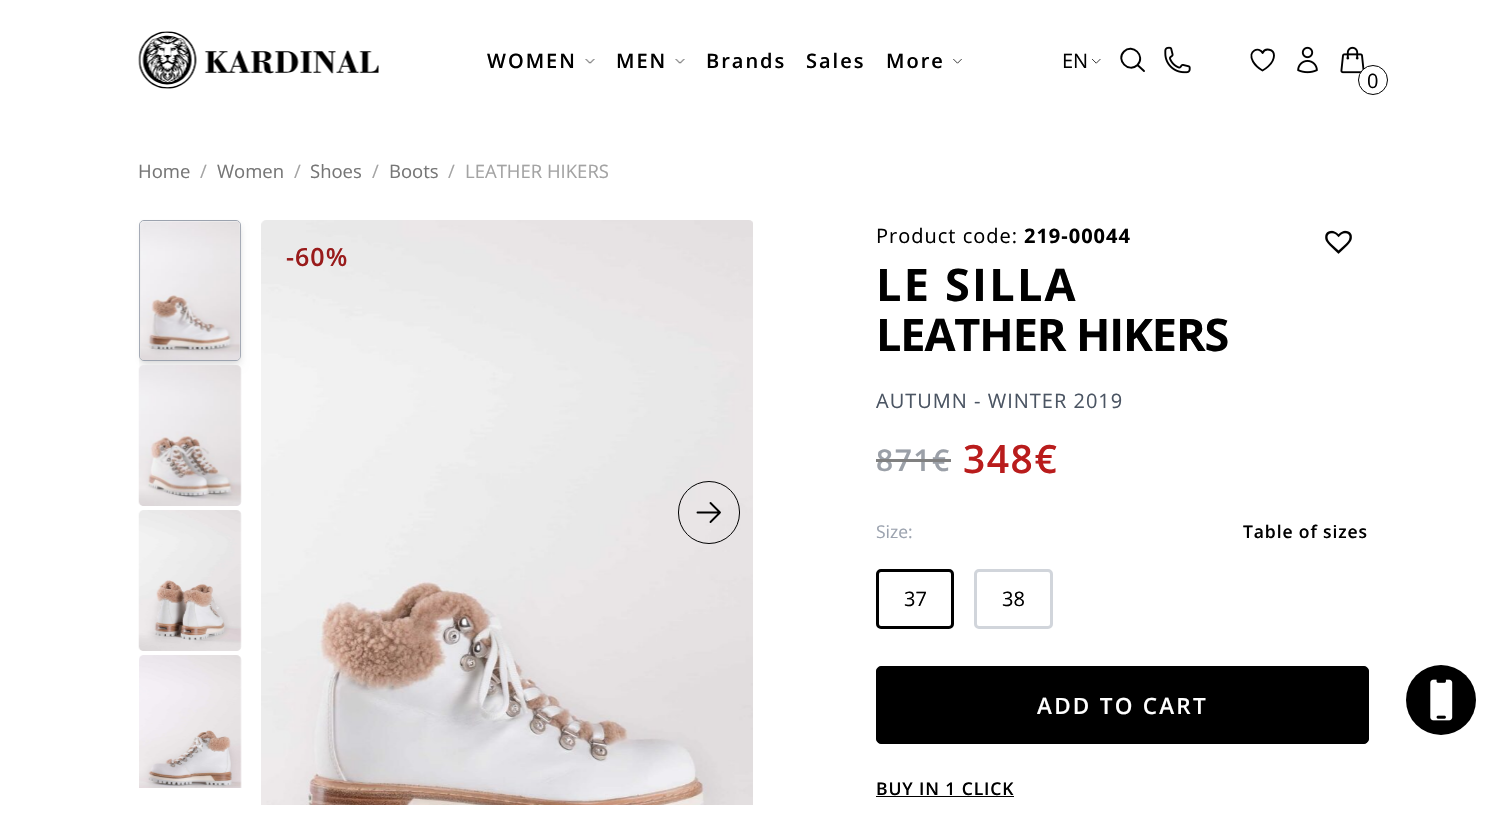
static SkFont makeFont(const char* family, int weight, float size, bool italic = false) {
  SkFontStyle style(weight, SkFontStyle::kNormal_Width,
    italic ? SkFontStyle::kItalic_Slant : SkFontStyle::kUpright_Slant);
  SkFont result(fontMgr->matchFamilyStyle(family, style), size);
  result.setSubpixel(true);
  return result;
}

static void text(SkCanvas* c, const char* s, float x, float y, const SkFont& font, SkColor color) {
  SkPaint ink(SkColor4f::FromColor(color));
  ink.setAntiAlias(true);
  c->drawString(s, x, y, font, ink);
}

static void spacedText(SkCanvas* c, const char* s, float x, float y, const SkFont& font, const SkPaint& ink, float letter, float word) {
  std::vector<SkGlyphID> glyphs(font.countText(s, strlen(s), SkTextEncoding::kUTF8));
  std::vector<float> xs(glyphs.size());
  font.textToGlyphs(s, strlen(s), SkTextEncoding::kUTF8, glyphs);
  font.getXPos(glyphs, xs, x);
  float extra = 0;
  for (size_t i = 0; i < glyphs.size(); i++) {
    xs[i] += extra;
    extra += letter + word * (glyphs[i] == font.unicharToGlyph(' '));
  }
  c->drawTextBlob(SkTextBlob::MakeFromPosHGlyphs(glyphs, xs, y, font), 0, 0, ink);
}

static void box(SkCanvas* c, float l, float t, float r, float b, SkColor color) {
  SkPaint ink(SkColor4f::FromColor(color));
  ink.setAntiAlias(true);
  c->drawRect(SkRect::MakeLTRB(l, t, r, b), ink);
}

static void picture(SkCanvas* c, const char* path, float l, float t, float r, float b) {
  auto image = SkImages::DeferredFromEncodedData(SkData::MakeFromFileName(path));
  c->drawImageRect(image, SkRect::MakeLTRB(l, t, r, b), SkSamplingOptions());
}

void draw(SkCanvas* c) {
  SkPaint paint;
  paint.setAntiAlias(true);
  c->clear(0xffffffff);
  picture(c, "img_01.png", 138, 31, 379, 89);
  SkFont face1 = makeFont("Open Sans", 600, 20);
  paint.setColor(0xff000000);
  spacedText(c, "WOMEN", 487, 68, face1, paint, 2, 0);
  picture(c, "img_02.png", 585, 59, 595, 64);
  spacedText(c, "MEN", 616, 68, face1, paint, 2, 0);
  picture(c, "img_02.png", 675, 59, 685, 64);
  spacedText(c, "Brands", 706, 68, face1, paint, 2, 0);
  spacedText(c, "Sales", 806, 68, face1, paint, 2, 0);
  spacedText(c, "More", 886, 68, face1, paint, 2, 0);
  picture(c, "img_03.png", 953, 59, 962, 64);
  SkFont face2 = makeFont("Open Sans", 400, 20);
  text(c, "EN", 1062, 68, face2, 0xff000000);
  picture(c, "img_04.png", 1092, 59, 1101, 64);
  paint.setStyle(SkPaint::kStroke_Style);
  paint.setStrokeWidth(1.9f);
  paint.setStrokeCap(SkPaint::kRound_Cap);
  paint.setStrokeJoin(SkPaint::kRound_Join);
  c->drawPath(SkPathBuilder().moveTo(1144, 71).lineTo(1137.5f, 65).moveTo(1137.5f, 65).cubicTo(1146, 56, 1132.5f, 43, 1124, 51.5f).cubicTo(1115.5f, 60, 1128.5f, 73.5f, 1137.5f, 65).close().detach(), paint);
  picture(c, "img_05.png", 1164, 46, 1191, 74);
  c->drawPath(SkPathBuilder().moveTo(1274, 55.5f).cubicTo(1274, 49, 1265, 47.5f, 1262.5f, 53).cubicTo(1259.5f, 46, 1247, 50.5f, 1253, 61.5f).cubicTo(1255, 65, 1259, 68.5f, 1262.5f, 70.5f).cubicTo(1262.5f, 70.5f, 1274, 64.5f, 1274, 55.5f).close().detach(), paint);
  picture(c, "img_06.png", 1297, 46, 1318, 74);
  picture(c, "img_07.png", 1340, 46, 1365, 74);
  paint.setStyle(SkPaint::kFill_Style);
  paint.setColor(0xffffffff);
  c->drawCircle(1373, 80, 14.5f, paint);
  paint.setStyle(SkPaint::kStroke_Style);
  paint.setStrokeWidth(1);
  paint.setStrokeCap(SkPaint::kButt_Cap);
  paint.setStrokeJoin(SkPaint::kMiter_Join);
  paint.setColor(0xff000000);
  c->drawCircle(1373, 80, 14.5f, paint);
  text(c, "0", 1367, 88, face2, 0xff000000);
  SkFont face3 = makeFont("Open Sans", 400, 18.5f);
  text(c, "Home", 138, 178, face3, 0xff767676);
  text(c, "/", 200, 178, face3, 0xffa3a3a3);
  text(c, "Women", 217, 178, face3, 0xff767676);
  text(c, "/", 294, 178, face3, 0xffa3a3a3);
  text(c, "Shoes", 310, 178, face3, 0xff767676);
  text(c, "/", 372, 178, face3, 0xffa3a3a3);
  text(c, "Boots", 389, 178, face3, 0xff767676);
  text(c, "/", 448, 178, face3, 0xffa3a3a3);
  text(c, "LEATHER HIKERS", 465, 178, face3, 0xffa3a3a3);
  paint.setStyle(SkPaint::kFill_Style);
  paint.setColor(0x1a000000);
  paint.setMaskFilter(SkMaskFilter::MakeBlur(kNormal_SkBlurStyle, 2.5f));
  c->drawRoundRect(SkRect::MakeLTRB(141, 225, 239, 361), 2.5f, 2.5f, paint);
  paint.setMaskFilter(nullptr);
  c->save();
  c->clipRect(SkRect::MakeLTRB(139, 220, 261, 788));
  paint.setMaskFilter(SkMaskFilter::MakeBlur(kNormal_SkBlurStyle, 4));
  c->drawRoundRect(SkRect::MakeLTRB(140, 226, 240, 365), 4, 4, paint);
  paint.setMaskFilter(nullptr);
  c->restore();
  paint.setStyle(SkPaint::kStroke_Style);
  paint.setColor(0xff9ca3af);
  c->drawRoundRect(SkRect::MakeLTRB(139.5f, 220.5f, 240.5f, 360.5f), 4.5f, 4.5f, paint);
  picture(c, "img_08.png", 139, 221, 241, 360);
  picture(c, "img_09.png", 138, 365, 242, 506);
  picture(c, "img_10.png", 138, 510, 242, 651);
  picture(c, "img_11.png", 139, 655, 242, 788);
  picture(c, "img_12.png", 261, 220, 753, 805);
  SkFont face4 = makeFont("Open Sans", 600, 25);
  paint.setStyle(SkPaint::kFill_Style);
  paint.setColor(0xff991b1b);
  spacedText(c, "-60%", 286, 266, face4, paint, 1, 0);
  paint.setStyle(SkPaint::kStroke_Style);
  paint.setColor(0xff000000);
  c->drawRoundRect(SkRect::MakeLTRB(678.5f, 481.5f, 739.5f, 543.5f), 30.5f, 30.5f, paint);
  paint.setStrokeWidth(1.9f);
  paint.setStrokeCap(SkPaint::kRound_Cap);
  paint.setStrokeJoin(SkPaint::kRound_Join);
  c->drawPath(SkPathBuilder().moveTo(710.5f, 503).lineTo(720, 512.5f).moveTo(720, 512.5f).lineTo(710.5f, 522).moveTo(720, 512.5f).lineTo(697.5f, 512.5f).detach(), paint);
  paint.setStyle(SkPaint::kFill_Style);
  spacedText(c, "Product code:", 876, 243, face2, paint, 1, 0);
  SkFont face5 = makeFont("Open Sans", 700, 20);
  spacedText(c, "219-00044", 1024, 243, face5, paint, 1, 0);
  picture(c, "img_13.png", 1325, 230, 1352, 254);
  SkFont face6 = makeFont("Open Sans", 700, 45);
  spacedText(c, "LE SILLA", 876, 301, face6, paint, 2.25f, 0);
  spacedText(c, "LEATHER HIKERS", 876, 351, face6, paint, -1.1f, 0);
  paint.setColor(0xff4b5563);
  spacedText(c, "AUTUMN - WINTER 2019", 876, 408, face2, paint, 1, 0);
  SkFont face7 = makeFont("Open Sans", 600, 30);
  paint.setColor(0xff9ba0a8);
  spacedText(c, "871", 876, 471, face7, paint, 1.5f, 0);
  box(c, 876, 459, 933, 462, 0xff808080);
  spacedText(c, "€", 932, 471, face7, paint, 1.5f, 0);
  box(c, 933, 459, 951, 462, 0xff808080);
  SkFont face8 = makeFont("Open Sans", 600, 39);
  paint.setColor(0xffb91c1c);
  spacedText(c, "348€", 963, 473, face8, paint, 1.5f, 0);
  SkFont face9 = makeFont("Open Sans", 400, 17.5f);
  text(c, "Size:", 876, 538, face9, 0xff9ca3af);
  SkFont face10 = makeFont("Open Sans", 600, 17.5f);
  paint.setColor(0xff000000);
  spacedText(c, "Table of sizes", 1243, 538, face10, paint, 0.9f, 0);
  paint.setStyle(SkPaint::kStroke_Style);
  paint.setStrokeWidth(3);
  paint.setStrokeCap(SkPaint::kButt_Cap);
  paint.setStrokeJoin(SkPaint::kMiter_Join);
  c->drawRoundRect(SkRect::MakeLTRB(877.5f, 570.5f, 952.5f, 627.5f), 3.5f, 3.5f, paint);
  text(c, "37", 904, 606, face2, 0xff000000);
  paint.setColor(0xffd1d5db);
  c->drawRoundRect(SkRect::MakeLTRB(975.5f, 570.5f, 1051.5f, 627.5f), 3.5f, 3.5f, paint);
  text(c, "38", 1002, 606, face2, 0xff000000);
  paint.setStyle(SkPaint::kFill_Style);
  paint.setColor(0xff000000);
  c->drawRoundRect(SkRect::MakeLTRB(876.5f, 666.5f, 1368.5f, 743.5f), 4.5f, 4.5f, paint);
  paint.setStyle(SkPaint::kStroke_Style);
  paint.setStrokeWidth(1);
  c->drawRoundRect(SkRect::MakeLTRB(876.5f, 666.5f, 1368.5f, 743.5f), 4.5f, 4.5f, paint);
  SkFont face11 = makeFont("Open Sans", 600, 22.5f);
  paint.setStyle(SkPaint::kFill_Style);
  paint.setColor(0xffffffff);
  spacedText(c, "ADD TO CART", 1037, 714, face11, paint, 2.25f, 0);
  paint.setColor(0xff000000);
  spacedText(c, "BUY IN 1 CLICK", 876, 795, face10, paint, 0.9f, 0);
  box(c, 876, 796, 1014, 797, 0xff000000);
  c->drawCircle(1441, 700, 35, paint);
  picture(c, "img_14.png", 1430, 679, 1453, 721);
}
